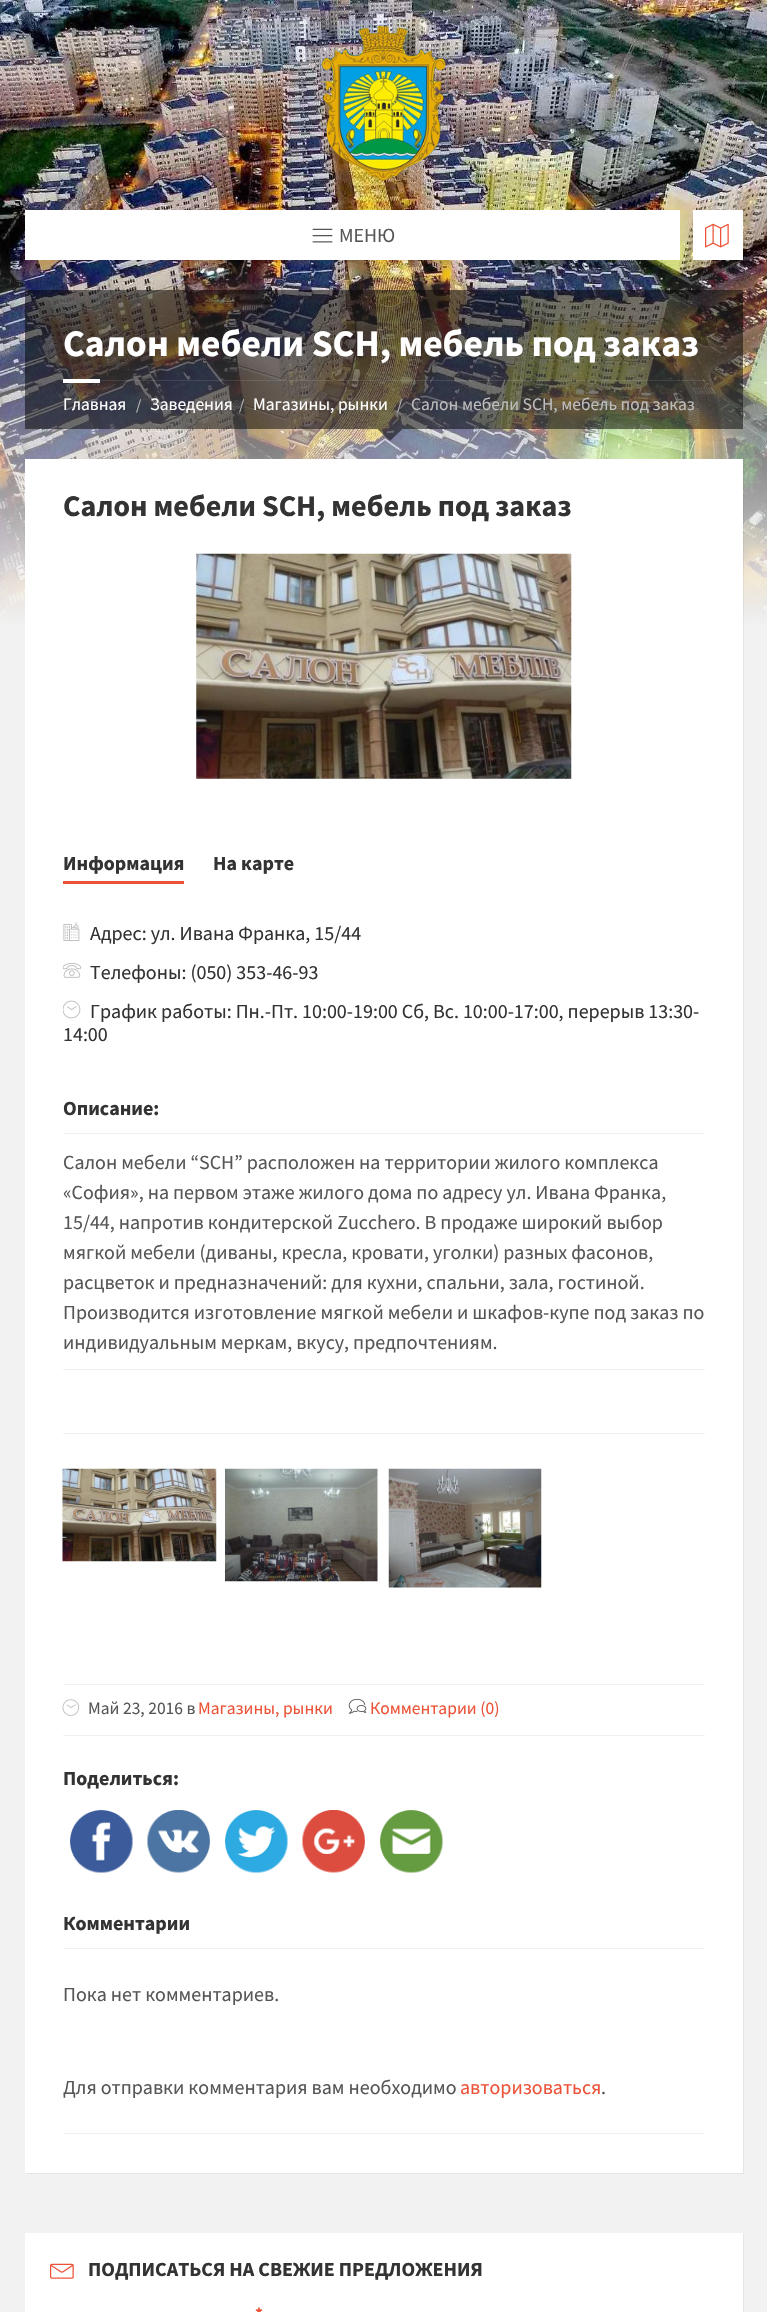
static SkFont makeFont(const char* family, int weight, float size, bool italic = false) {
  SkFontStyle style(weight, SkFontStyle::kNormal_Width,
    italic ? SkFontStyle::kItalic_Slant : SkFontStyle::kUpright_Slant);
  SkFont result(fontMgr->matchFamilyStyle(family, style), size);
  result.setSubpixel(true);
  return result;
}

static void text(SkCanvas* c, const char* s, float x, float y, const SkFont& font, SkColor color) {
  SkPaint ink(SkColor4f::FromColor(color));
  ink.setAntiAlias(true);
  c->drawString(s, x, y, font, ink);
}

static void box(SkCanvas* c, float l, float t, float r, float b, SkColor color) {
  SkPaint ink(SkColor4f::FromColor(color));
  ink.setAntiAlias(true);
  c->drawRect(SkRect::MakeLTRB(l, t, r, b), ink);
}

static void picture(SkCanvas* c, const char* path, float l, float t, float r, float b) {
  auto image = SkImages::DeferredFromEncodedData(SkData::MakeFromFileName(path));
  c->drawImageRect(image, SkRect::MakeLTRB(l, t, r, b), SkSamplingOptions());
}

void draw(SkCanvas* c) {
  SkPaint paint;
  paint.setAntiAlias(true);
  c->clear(0xfff2f2f2);
  picture(c, "img_01.png", 0, 0, 767, 625);
  picture(c, "img_02.png", 321, 25, 446, 181);
  box(c, 25, 210, 680, 260, 0xffffffff);
  picture(c, "img_03.png", 312, 228, 333, 243);
  SkFont face1 = makeFont("Source Sans Pro", 400, 20);
  text(c, "МЕНЮ", 339, 242, face1, 0xff565656);
  box(c, 693, 210, 743, 260, 0xffffffff);
  picture(c, "img_04.png", 705, 223, 729, 248);
  box(c, 25, 290, 743, 429, 0x80000000);
  box(c, 100, 380, 705, 381, 0x1affffff);
  SkFont face2 = makeFont("Source Sans Pro", 700, 37.5f);
  text(c, "Салон мебели SCH, мебель под заказ", 63, 356, face2, 0xffffffff);
  box(c, 63, 379, 100, 383, 0xffffffff);
  SkFont face3 = makeFont("Source Sans Pro", 400, 17.5f);
  text(c, "Главная", 63, 410, face3, 0xffffffff);
  SkFont face4 = makeFont("Source Sans Pro", 400, 15);
  text(c, "/", 136, 410, face4, 0xffbebebe);
  text(c, "Заведения", 150, 410, face3, 0xffffffff);
  text(c, "/", 239, 410, face4, 0xffbebebe);
  text(c, "Магазины, рынки", 253, 410, face3, 0xffffffff);
  text(c, "/", 397, 410, face4, 0xffbebebe);
  text(c, "Салон мебели SCH, мебель под заказ", 411, 410, face3, 0xffbebebe);
  paint.setColor(0x80000000);
  c->drawPath(SkPathBuilder().moveTo(377.5f, 429).lineTo(402.5f, 429).lineTo(390, 441).close().detach(), paint);
  paint.setColor(0x0d000000);
  c->drawPath(SkPathBuilder().moveTo(26, 2172).lineTo(26, 2174).lineTo(744, 2174).lineTo(744, 460).lineTo(742, 460).lineTo(742, 2172).close().detach(), paint);
  box(c, 25, 459, 743, 2173, 0xffffffff);
  SkFont face5 = makeFont("Source Sans Pro", 700, 30);
  text(c, "Салон мебели SCH, мебель под заказ", 63, 516, face5, 0xff333333);
  picture(c, "img_05.png", 196, 553, 572, 779);
  box(c, 63, 881, 184, 884, 0xffec5237);
  SkFont face6 = makeFont("Source Sans Pro", 700, 20);
  text(c, "Информация", 63, 870, face6, 0xff333333);
  text(c, "На карте", 213, 870, face6, 0xff333333);
  picture(c, "img_06.png", 63, 922, 80, 941);
  text(c, "Адрес: ул. Ивана Франка, 15/44", 90, 940, face1, 0xff333333);
  picture(c, "img_07.png", 63, 963, 82, 978);
  text(c, "Телефоны: (050) 353-46-93", 90, 979, face1, 0xff333333);
  picture(c, "img_08.png", 63, 1000, 81, 1019);
  text(c, "График работы: Пн.-Пт. 10:00-19:00 Сб, Вс. 10:00-17:00, перерыв 13:30-", 90, 1018, face1, 0xff333333);
  text(c, "14:00", 63, 1041, face1, 0xff333333);
  text(c, "Описание:", 63, 1115, face6, 0xff333333);
  box(c, 63, 1133, 705, 1134, 0xfff0f0f0);
  box(c, 63, 1369, 705, 1370, 0xfff0f0f0);
  text(c, "Салон мебели “SCH” расположен на территории жилого комплекса", 63, 1169, face1, 0xff565656);
  text(c, "«София», на первом этаже жилого дома по адресу ул. Ивана Франка,", 63, 1199, face1, 0xff565656);
  text(c, "15/44, напротив кондитерской Zucchero. В продаже широкий выбор", 63, 1229, face1, 0xff565656);
  text(c, "мягкой мебели (диваны, кресла, кровати, уголки) разных фасонов,", 63, 1259, face1, 0xff565656);
  text(c, "расцветок и предназначений: для кухни, спальни, зала, гостиной.", 63, 1289, face1, 0xff565656);
  text(c, "Производится изготовление мягкой мебели и шкафов-купе под заказ по", 63, 1319, face1, 0xff565656);
  text(c, "индивидуальным меркам, вкусу, предпочтениям.", 63, 1349, face1, 0xff565656);
  box(c, 63, 1433, 705, 1434, 0xfff0f0f0);
  picture(c, "img_09.png", 62, 1468, 217, 1562);
  picture(c, "img_10.png", 225, 1468, 378, 1582);
  picture(c, "img_11.png", 388, 1468, 542, 1588);
  box(c, 63, 1684, 705, 1685, 0xfff0f0f0);
  box(c, 63, 1735, 705, 1736, 0xfff0f0f0);
  picture(c, "img_12.png", 62, 1699, 80, 1716);
  text(c, "Май 23, 2016 в", 88, 1714, face3, 0xff565656);
  text(c, "Магазины, рынки", 198, 1714, face3, 0xffec5237);
  picture(c, "img_13.png", 348, 1698, 367, 1714);
  text(c, "Комментарии (0)", 370, 1714, face3, 0xffec5237);
  text(c, "Поделиться:", 63, 1785, face6, 0xff333333);
  picture(c, "img_14.png", 70, 1810, 133, 1873);
  picture(c, "img_15.png", 147, 1810, 210, 1873);
  picture(c, "img_16.png", 225, 1810, 288, 1873);
  picture(c, "img_17.png", 302, 1810, 365, 1873);
  picture(c, "img_18.png", 380, 1810, 443, 1873);
  text(c, "Комментарии", 63, 1930, face6, 0xff333333);
  box(c, 63, 1948, 705, 1949, 0xfff0f0f0);
  text(c, "Пока нет комментариев.", 63, 2001, face1, 0xff565656);
  text(c, "Для отправки комментария вам необходимо", 63, 2094, face1, 0xff565656);
  text(c, "авторизоваться", 460, 2094, face1, 0xffec5237);
  text(c, ".", 601, 2094, face1, 0xff565656);
  box(c, 63, 2133, 705, 2134, 0xfff0f0f0);
  paint.setColor(0xffe6e6e6);
  c->drawPath(SkPathBuilder().moveTo(26, 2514).lineTo(26, 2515).lineTo(744, 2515).lineTo(744, 2234).lineTo(742, 2234).lineTo(742, 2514).close().detach(), paint);
  box(c, 25, 2233, 743, 2312, 0xffffffff);
  picture(c, "img_19.png", 50, 2263, 74, 2279);
  text(c, "ПОДПИСАТЬСЯ НА СВЕЖИЕ ПРЕДЛОЖЕНИЯ", 88, 2276, face6, 0xff333333);
  SkFont face7 = makeFont("Source Sans Pro", 700, 17.5f);
  text(c, "*", 255, 2320, face7, 0xffec5237);
}
